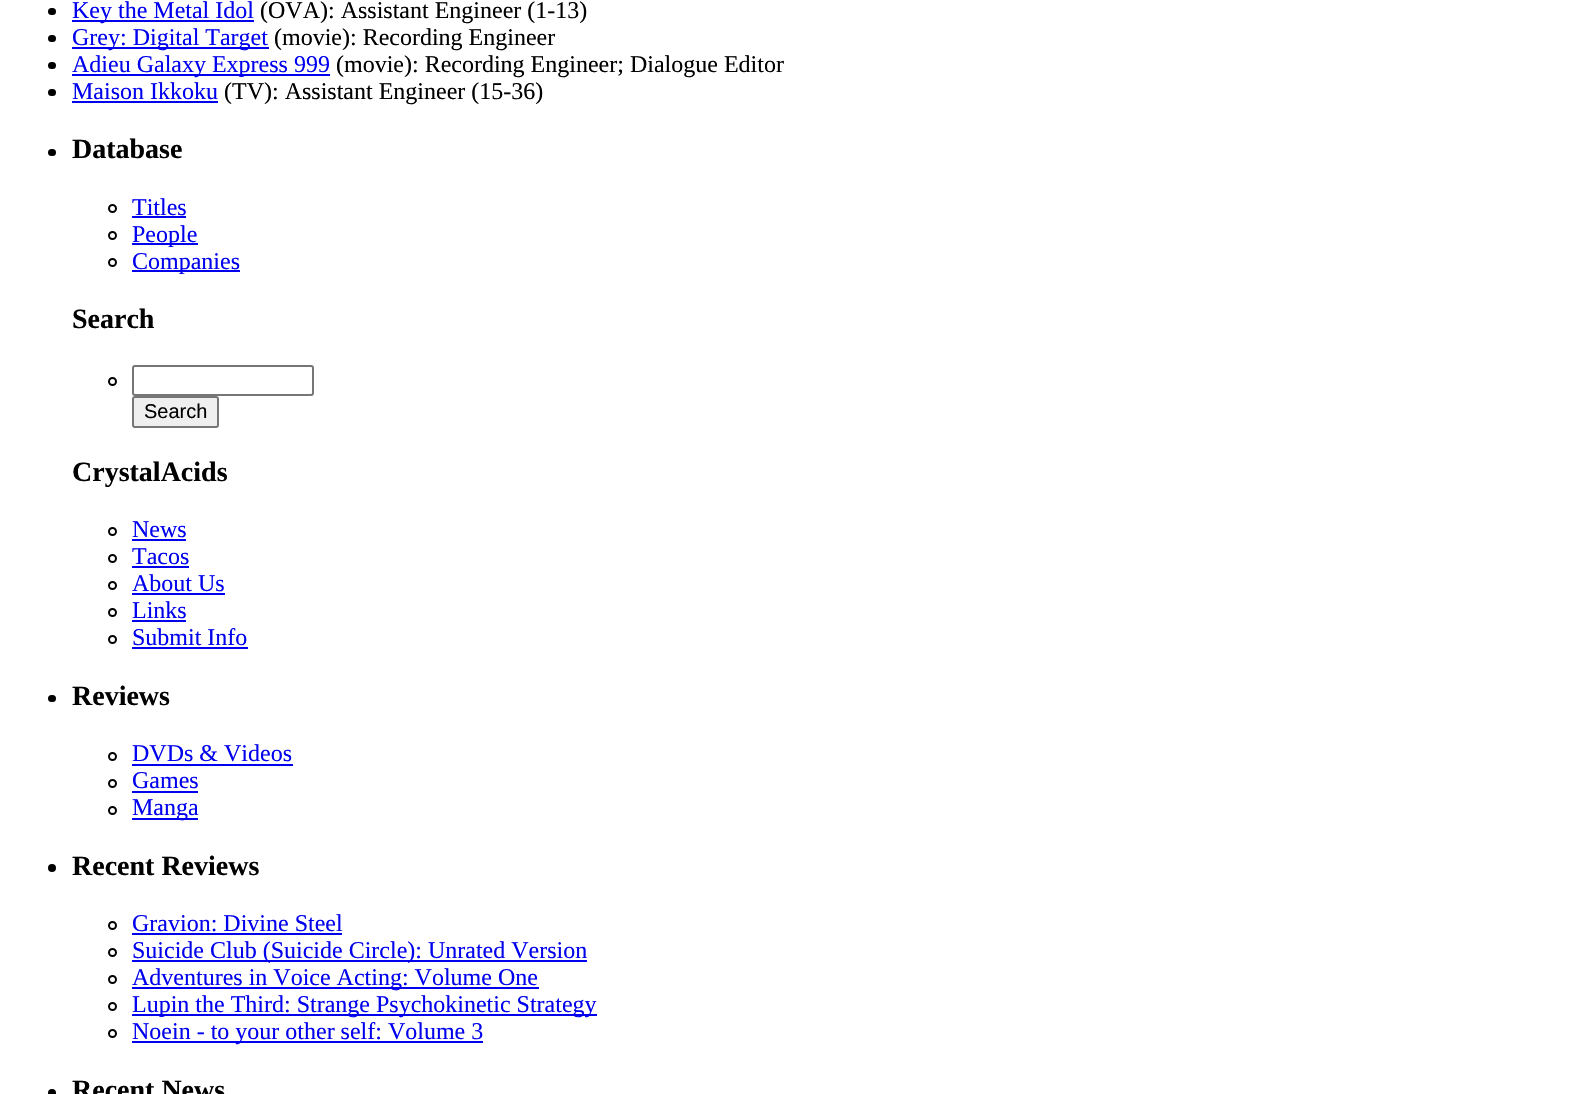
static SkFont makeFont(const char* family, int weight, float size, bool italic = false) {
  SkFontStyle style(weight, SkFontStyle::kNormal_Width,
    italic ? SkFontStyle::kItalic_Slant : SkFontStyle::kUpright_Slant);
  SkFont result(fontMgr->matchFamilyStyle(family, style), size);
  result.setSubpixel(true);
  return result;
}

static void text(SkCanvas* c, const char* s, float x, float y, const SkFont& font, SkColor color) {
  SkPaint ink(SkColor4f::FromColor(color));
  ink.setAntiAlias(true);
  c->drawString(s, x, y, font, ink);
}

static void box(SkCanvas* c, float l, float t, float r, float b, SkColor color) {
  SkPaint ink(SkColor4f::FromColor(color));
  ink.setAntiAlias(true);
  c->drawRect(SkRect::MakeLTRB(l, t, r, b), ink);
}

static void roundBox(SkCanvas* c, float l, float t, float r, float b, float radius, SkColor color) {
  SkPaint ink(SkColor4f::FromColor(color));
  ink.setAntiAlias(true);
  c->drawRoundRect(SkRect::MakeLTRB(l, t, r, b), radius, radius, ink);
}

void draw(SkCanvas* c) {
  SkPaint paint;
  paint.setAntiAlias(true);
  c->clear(0xffffffff);
  roundBox(c, 48, 8, 56, 15, 3.5f, 0xff000000);
  box(c, 72, 20, 254, 22, 0xff0000ee);
  SkFont face1 = makeFont("Liberation Serif", 400, 24);
  text(c, "Key the Metal Idol", 72, 18, face1, 0xff0000ee);
  text(c, "(OVA): Assistant Engineer (1-13)", 260, 18, face1, 0xff000000);
  roundBox(c, 48, 35, 56, 42, 3.5f, 0xff000000);
  box(c, 72, 47, 269, 49, 0xff0000ee);
  text(c, "Grey: Digital Target", 72, 45, face1, 0xff0000ee);
  text(c, "(movie): Recording Engineer", 274, 45, face1, 0xff000000);
  roundBox(c, 48, 62, 56, 69, 3.5f, 0xff000000);
  box(c, 72, 74, 330, 76, 0xff0000ee);
  text(c, "Adieu Galaxy Express 999", 72, 72, face1, 0xff0000ee);
  text(c, "(movie): Recording Engineer; Dialogue Editor", 336, 72, face1, 0xff000000);
  roundBox(c, 48, 89, 56, 96, 3.5f, 0xff000000);
  text(c, "Maison Ikkoku", 72, 99, face1, 0xff0000ee);
  box(c, 72, 101, 218, 103, 0xff0000ee);
  text(c, "(TV): Assistant Engineer (15-36)", 224, 99, face1, 0xff000000);
  roundBox(c, 48, 149, 56, 156, 3.5f, 0xff000000);
  SkFont face2 = makeFont("Liberation Serif", 700, 28);
  text(c, "Database", 72, 158, face2, 0xff000000);
  paint.setStyle(SkPaint::kStroke_Style);
  paint.setStrokeWidth(2);
  paint.setColor(0xff000000);
  c->drawCircle(112.5f, 208.5f, 3.5f, paint);
  text(c, "Titles", 132, 215, face1, 0xff0000ee);
  box(c, 132, 216, 186, 218, 0xff0000ee);
  c->drawCircle(112.5f, 235.5f, 3.5f, paint);
  box(c, 132, 243, 198, 245, 0xff0000ee);
  text(c, "People", 132, 242, face1, 0xff0000ee);
  c->drawCircle(112.5f, 262.5f, 3.5f, paint);
  box(c, 132, 270, 240, 272, 0xff0000ee);
  text(c, "Companies", 132, 269, face1, 0xff0000ee);
  text(c, "Search", 72, 328, face2, 0xff000000);
  c->drawCircle(112.5f, 381.5f, 3.5f, paint);
  paint.setColor(0xff767676);
  c->drawRoundRect(SkRect::MakeLTRB(133, 366, 313, 395), 2, 2, paint);
  paint.setStyle(SkPaint::kFill_Style);
  paint.setColor(0xffefefef);
  c->drawRoundRect(SkRect::MakeLTRB(133, 397, 218, 427), 2, 2, paint);
  paint.setStyle(SkPaint::kStroke_Style);
  paint.setColor(0xff767676);
  c->drawRoundRect(SkRect::MakeLTRB(133, 397, 218, 427), 2, 2, paint);
  SkFont face3 = makeFont("Liberation Sans", 400, 20);
  text(c, "Search", 144, 418, face3, 0xff000000);
  text(c, "CrystalAcids", 72, 481, face2, 0xff000000);
  paint.setColor(0xff000000);
  c->drawCircle(112.5f, 531.5f, 3.5f, paint);
  text(c, "News", 132, 537, face1, 0xff0000ee);
  box(c, 132, 539, 186, 541, 0xff0000ee);
  c->drawCircle(112.5f, 558.5f, 3.5f, paint);
  text(c, "Tacos", 132, 564, face1, 0xff0000ee);
  box(c, 132, 566, 189, 568, 0xff0000ee);
  c->drawCircle(112.5f, 585.5f, 3.5f, paint);
  text(c, "About Us", 132, 591, face1, 0xff0000ee);
  box(c, 132, 593, 225, 595, 0xff0000ee);
  c->drawCircle(112.5f, 612.5f, 3.5f, paint);
  text(c, "Links", 132, 618, face1, 0xff0000ee);
  box(c, 132, 620, 186, 622, 0xff0000ee);
  c->drawCircle(112.5f, 639.5f, 3.5f, paint);
  text(c, "Submit Info", 132, 645, face1, 0xff0000ee);
  box(c, 132, 647, 248, 649, 0xff0000ee);
  roundBox(c, 48, 695, 56, 702, 3.5f, 0xff000000);
  text(c, "Reviews", 72, 705, face2, 0xff000000);
  c->drawCircle(112.5f, 756.5f, 3.5f, paint);
  text(c, "DVDs & Videos", 132, 761, face1, 0xff0000ee);
  box(c, 132, 764, 293, 766, 0xff0000ee);
  c->drawCircle(112.5f, 783.5f, 3.5f, paint);
  text(c, "Games", 132, 788, face1, 0xff0000ee);
  box(c, 132, 791, 198, 793, 0xff0000ee);
  c->drawCircle(112.5f, 810.5f, 3.5f, paint);
  box(c, 132, 818, 198, 820, 0xff0000ee);
  text(c, "Manga", 132, 815, face1, 0xff0000ee);
  paint.setStyle(SkPaint::kFill_Style);
  c->drawCircle(52, 868, 4, paint);
  text(c, "Recent Reviews", 72, 875, face2, 0xff000000);
  paint.setStyle(SkPaint::kStroke_Style);
  c->drawCircle(112.5f, 925.5f, 3.5f, paint);
  text(c, "Gravion: Divine Steel", 132, 931, face1, 0xff0000ee);
  box(c, 132, 933, 342, 935, 0xff0000ee);
  c->drawCircle(112.5f, 952.5f, 3.5f, paint);
  box(c, 132, 960, 587, 962, 0xff0000ee);
  text(c, "Suicide Club (Suicide Circle): Unrated Version", 132, 958, face1, 0xff0000ee);
  c->drawCircle(112.5f, 979.5f, 3.5f, paint);
  box(c, 132, 987, 539, 989, 0xff0000ee);
  text(c, "Adventures in Voice Acting: Volume One", 132, 985, face1, 0xff0000ee);
  c->drawCircle(112.5f, 1006.5f, 3.5f, paint);
  box(c, 132, 1014, 597, 1016, 0xff0000ee);
  text(c, "Lupin the Third: Strange Psychokinetic Strategy", 132, 1012, face1, 0xff0000ee);
  c->drawCircle(112.5f, 1033.5f, 3.5f, paint);
  box(c, 132, 1041, 483, 1043, 0xff0000ee);
  text(c, "Noein - to your other self: Volume 3", 132, 1039, face1, 0xff0000ee);
  paint.setStyle(SkPaint::kFill_Style);
  c->drawCircle(52, 1093, 4, paint);
  text(c, "Recent News", 72, 1099, face2, 0xff000000);
}
